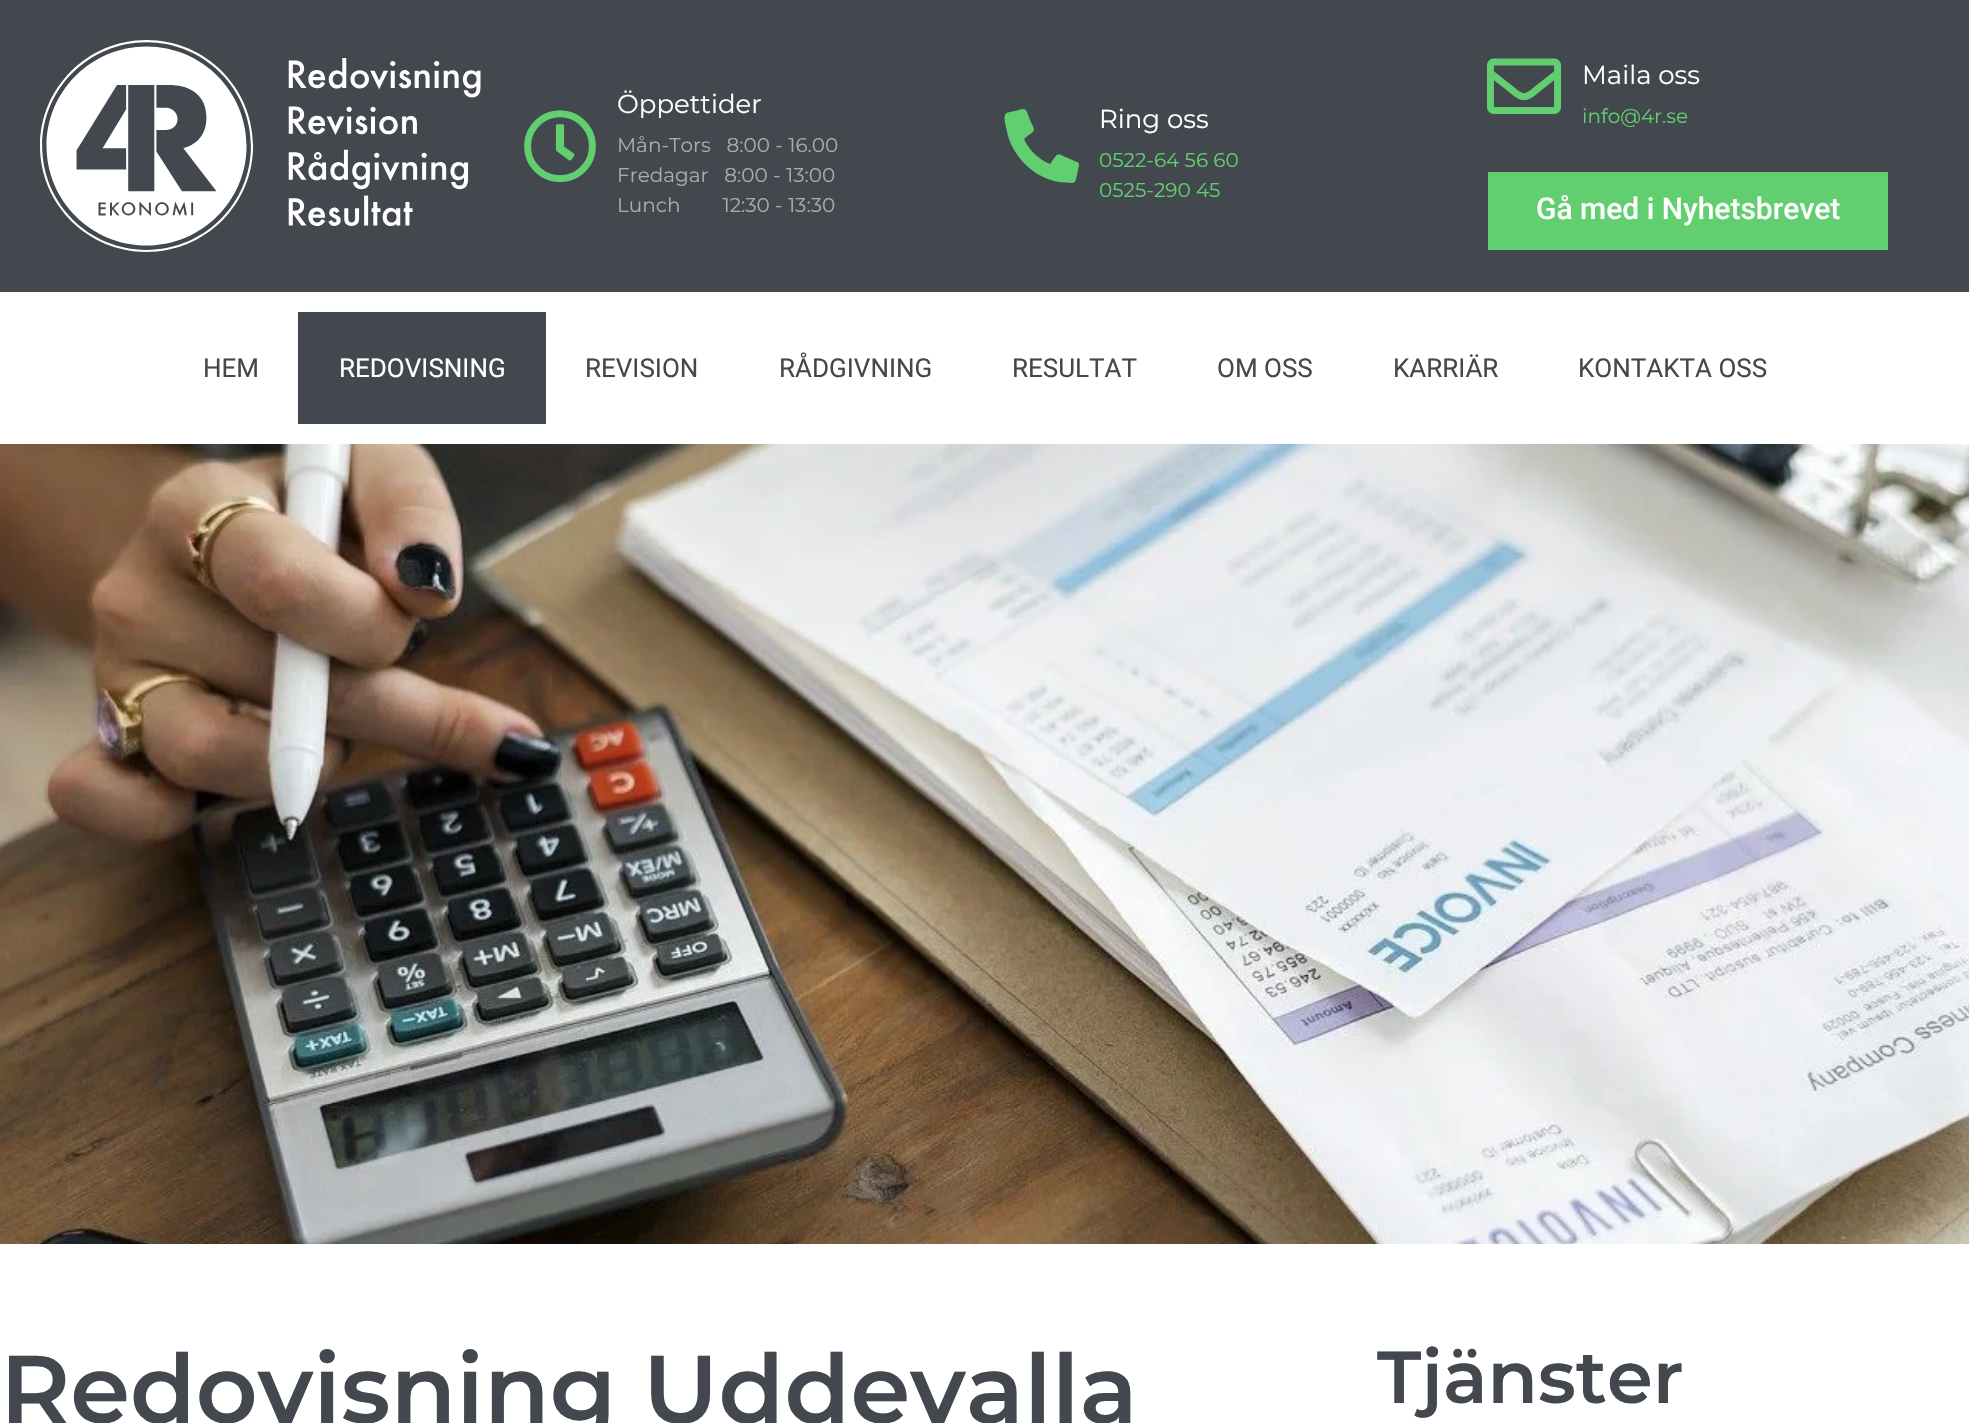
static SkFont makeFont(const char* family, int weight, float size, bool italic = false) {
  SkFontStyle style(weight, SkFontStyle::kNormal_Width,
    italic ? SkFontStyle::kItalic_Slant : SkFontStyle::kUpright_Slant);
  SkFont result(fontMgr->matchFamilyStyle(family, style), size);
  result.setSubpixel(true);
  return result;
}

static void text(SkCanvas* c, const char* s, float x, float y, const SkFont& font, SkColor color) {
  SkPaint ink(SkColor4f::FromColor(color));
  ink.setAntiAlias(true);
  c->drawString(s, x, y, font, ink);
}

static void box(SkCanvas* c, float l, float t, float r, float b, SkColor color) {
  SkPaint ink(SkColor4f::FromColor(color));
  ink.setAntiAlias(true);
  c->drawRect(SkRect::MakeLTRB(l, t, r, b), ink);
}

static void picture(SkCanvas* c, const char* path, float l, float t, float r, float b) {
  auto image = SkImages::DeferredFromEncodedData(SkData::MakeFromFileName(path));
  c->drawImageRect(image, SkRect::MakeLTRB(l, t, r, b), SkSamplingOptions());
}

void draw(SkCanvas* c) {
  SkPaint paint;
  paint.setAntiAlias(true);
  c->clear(0xffffffff);
  box(c, 0, 0, 1969, 292, 0xff43484f);
  picture(c, "img_01.png", 40, 40, 481, 252);
  picture(c, "img_02.png", 524, 110, 596, 183);
  SkFont face1 = makeFont("Montserrat", 400, 26);
  text(c, "Öppettider", 617, 113, face1, 0xffffffff);
  SkFont face2 = makeFont("Montserrat", 400, 20);
  text(c, "Mån-Tors   8:00 - 16.00", 617, 152, face2, 0xffa9abae);
  text(c, "Fredagar   8:00 - 13:00", 617, 182, face2, 0xffa9abae);
  text(c, "Lunch        12:30 - 13:30", 617, 212, face2, 0xffa9abae);
  paint.setColor(0xff61ce70);
  c->drawPath(SkPathBuilder().moveTo(1077, 162).cubicTo(1078, 162, 1079, 163, 1079, 165).lineTo(1077, 175).cubicTo(1076, 178, 1076, 183, 1072, 183).lineTo(1059, 182).cubicTo(1035, 178, 1015, 159, 1008, 136).lineTo(1005, 123).cubicTo(1004, 112, 1005, 113, 1015, 111).cubicTo(1027, 108, 1025, 107, 1030, 120).cubicTo(1036, 133, 1036, 129, 1024, 139).cubicTo(1029, 150, 1038, 159, 1050, 164).lineTo(1055, 157).cubicTo(1058, 153, 1059, 154, 1063, 156).close().detach(), paint);
  text(c, "Ring oss", 1099, 128, face1, 0xffffffff);
  text(c, "0522-64 56 60", 1099, 167, face2, 0xff61ce70);
  text(c, "0525-290 45", 1099, 197, face2, 0xff61ce70);
  picture(c, "img_03.png", 1487, 58, 1561, 114);
  text(c, "Maila oss", 1582, 84, face1, 0xffffffff);
  text(c, "info@4r.se", 1582, 123, face2, 0xff61ce70);
  box(c, 1488, 172, 1888, 250, 0xff61ce70);
  SkFont face3 = makeFont("Roboto", 500, 30);
  text(c, "Gå med i Nyhetsbrevet", 1536, 219, face3, 0xffffffff);
  SkFont face4 = makeFont("Roboto", 400, 26);
  text(c, "HEM", 203, 377, face4, 0xff43484f);
  box(c, 298, 312, 546, 424, 0xff43484f);
  text(c, "REDOVISNING", 339, 377, face4, 0xffffffff);
  text(c, "REVISION", 585, 377, face4, 0xff43484f);
  text(c, "RÅDGIVNING", 779, 377, face4, 0xff43484f);
  text(c, "RESULTAT", 1012, 377, face4, 0xff43484f);
  text(c, "OM OSS", 1217, 377, face4, 0xff43484f);
  text(c, "KARRIÄR", 1393, 377, face4, 0xff43484f);
  text(c, "KONTAKTA OSS", 1578, 377, face4, 0xff43484f);
  picture(c, "img_04.png", 0, 444, 1969, 1244);
  SkFont face5 = makeFont("Montserrat", 600, 96);
  text(c, "Redovisning Uddevalla", 0, 1423, face5, 0xff43484f);
  SkFont face6 = makeFont("Montserrat", 600, 73.5f);
  text(c, "Tjänster", 1377, 1403, face6, 0xff43484f);
}
